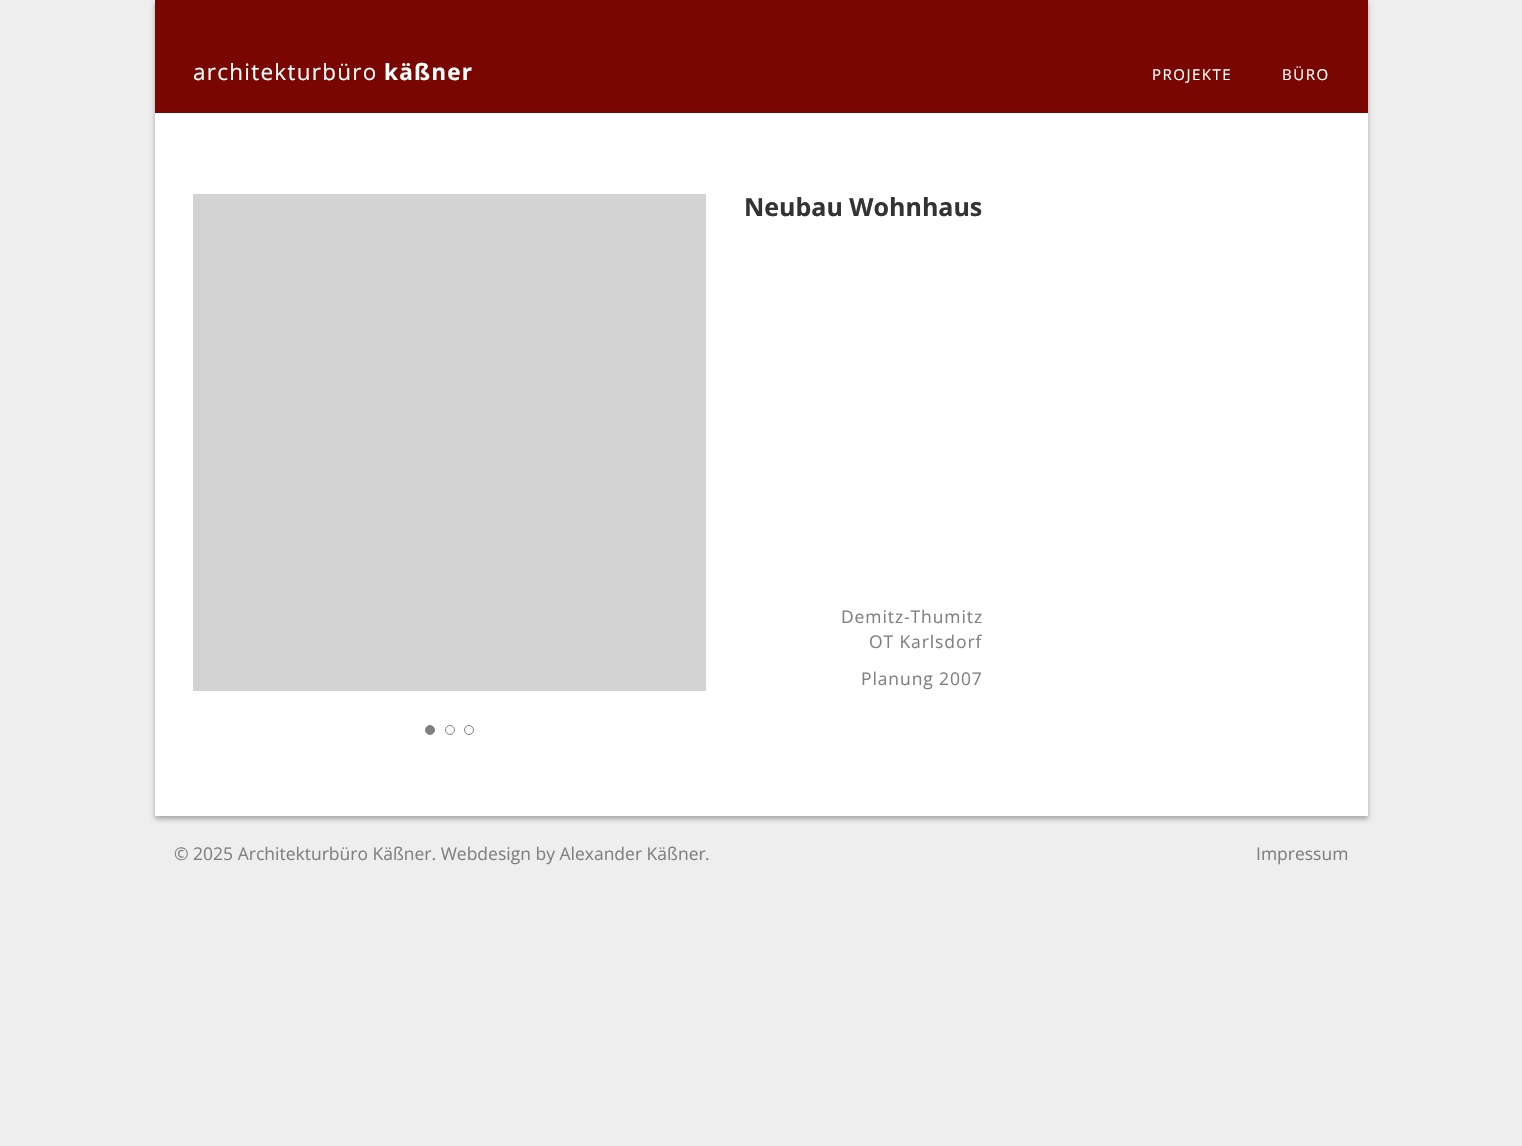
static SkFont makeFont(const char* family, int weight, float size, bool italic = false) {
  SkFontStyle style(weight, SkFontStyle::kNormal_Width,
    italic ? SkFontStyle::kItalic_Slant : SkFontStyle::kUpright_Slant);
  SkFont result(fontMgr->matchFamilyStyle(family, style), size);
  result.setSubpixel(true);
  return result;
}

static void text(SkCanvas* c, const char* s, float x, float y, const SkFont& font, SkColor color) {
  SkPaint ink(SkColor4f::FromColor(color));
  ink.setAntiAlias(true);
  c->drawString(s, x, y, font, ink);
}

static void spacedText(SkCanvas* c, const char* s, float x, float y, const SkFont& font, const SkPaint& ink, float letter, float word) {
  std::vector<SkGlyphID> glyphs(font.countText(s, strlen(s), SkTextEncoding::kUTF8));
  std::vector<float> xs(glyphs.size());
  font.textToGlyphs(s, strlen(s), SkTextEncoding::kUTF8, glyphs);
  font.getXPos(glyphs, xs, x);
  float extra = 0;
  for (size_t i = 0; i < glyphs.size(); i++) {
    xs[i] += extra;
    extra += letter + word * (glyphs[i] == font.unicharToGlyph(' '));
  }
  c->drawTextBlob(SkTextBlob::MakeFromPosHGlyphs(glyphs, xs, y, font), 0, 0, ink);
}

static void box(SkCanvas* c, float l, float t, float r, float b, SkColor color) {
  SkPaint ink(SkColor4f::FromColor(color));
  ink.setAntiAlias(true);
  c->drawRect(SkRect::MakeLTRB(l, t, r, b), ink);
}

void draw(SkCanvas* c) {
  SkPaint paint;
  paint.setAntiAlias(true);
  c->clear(0xffeeeeee);
  paint.setColor(0x4d000000);
  paint.setMaskFilter(SkMaskFilter::MakeBlur(kNormal_SkBlurStyle, 2.5f));
  c->drawRect(SkRect::MakeLTRB(155, 3, 1368, 819), paint);
  paint.setMaskFilter(nullptr);
  box(c, 155, 113, 1368, 816, 0xffffffff);
  box(c, 155, 0, 1368, 113, 0xff7a0601);
  SkFont face1 = makeFont("Open Sans", 400, 22.5f);
  paint.setColor(0xffffffff);
  spacedText(c, "architekturbüro", 193, 80, face1, paint, 1.25f, 0);
  SkFont face2 = makeFont("Open Sans", 700, 22.5f);
  spacedText(c, "käßner", 384, 80, face2, paint, 1.25f, 0);
  SkFont face3 = makeFont("Open Sans", 400, 15);
  spacedText(c, "PROJEKTE", 1152, 80, face3, paint, 1.5f, 0);
  spacedText(c, "BÜRO", 1282, 80, face3, paint, 1.5f, 0);
  box(c, 193, 194, 706, 691, 0xffd3d3d3);
  paint.setColor(0xff808080);
  c->drawCircle(430, 730, 4.5f, paint);
  paint.setStyle(SkPaint::kStroke_Style);
  paint.setStrokeWidth(1);
  c->drawCircle(430, 730, 4.5f, paint);
  c->drawCircle(450, 730, 4.5f, paint);
  c->drawCircle(469, 730, 4.5f, paint);
  SkFont face4 = makeFont("Open Sans", 700, 25);
  text(c, "Neubau Wohnhaus", 744, 216, face4, 0xff333333);
  SkFont face5 = makeFont("Open Sans", 400, 17.5f);
  paint.setStyle(SkPaint::kFill_Style);
  spacedText(c, "Demitz-Thumitz", 841, 623, face5, paint, 0.9f, 0);
  spacedText(c, "OT Karlsdorf", 869, 648, face5, paint, 0.9f, 0);
  spacedText(c, "Planung 2007", 861, 685, face5, paint, 0.9f, 0);
  text(c, "© 2025 Architekturbüro Käßner. Webdesign by Alexander Käßner", 174, 860, face5, 0xff808080);
  text(c, ".", 705, 860, face5, 0xff808080);
  text(c, "Impressum", 1256, 860, face5, 0xff808080);
}
